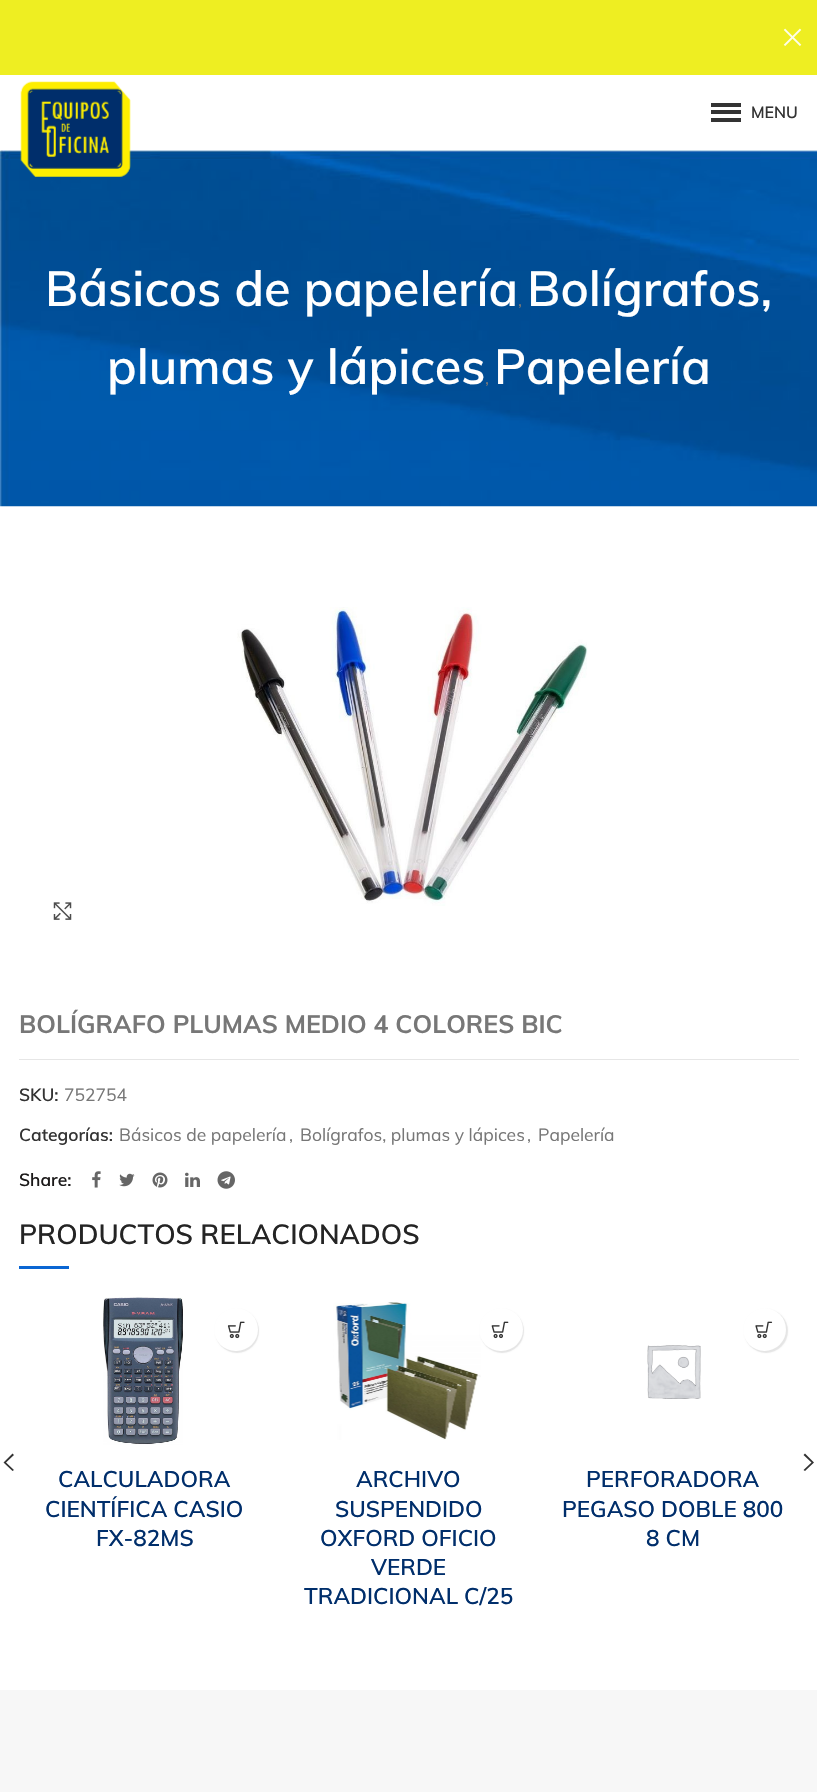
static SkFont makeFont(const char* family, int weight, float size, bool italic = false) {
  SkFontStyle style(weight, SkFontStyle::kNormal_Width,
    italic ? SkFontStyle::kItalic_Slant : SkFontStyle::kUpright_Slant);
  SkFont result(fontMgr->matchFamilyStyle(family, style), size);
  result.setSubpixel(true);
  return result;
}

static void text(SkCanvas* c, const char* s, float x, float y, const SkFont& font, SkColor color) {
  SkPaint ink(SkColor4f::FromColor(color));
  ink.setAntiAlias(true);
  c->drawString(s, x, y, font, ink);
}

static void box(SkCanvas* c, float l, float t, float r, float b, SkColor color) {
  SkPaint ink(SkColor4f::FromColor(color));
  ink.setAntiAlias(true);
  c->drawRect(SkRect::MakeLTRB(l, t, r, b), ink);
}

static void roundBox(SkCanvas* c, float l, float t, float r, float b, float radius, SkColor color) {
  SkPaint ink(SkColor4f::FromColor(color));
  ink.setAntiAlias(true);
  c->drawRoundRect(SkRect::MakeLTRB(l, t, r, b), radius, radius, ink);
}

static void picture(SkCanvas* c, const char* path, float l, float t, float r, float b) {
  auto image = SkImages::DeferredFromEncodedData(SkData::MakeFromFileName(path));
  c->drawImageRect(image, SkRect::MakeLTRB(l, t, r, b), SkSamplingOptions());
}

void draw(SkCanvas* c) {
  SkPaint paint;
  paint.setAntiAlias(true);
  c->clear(0xffffffff);
  box(c, 0, 0, 817, 75, 0xffeeee22);
  picture(c, "img_01.png", 783, 28, 802, 46);
  picture(c, "img_03.png", 0, 150, 817, 507);
  picture(c, "img_02.png", 20, 81, 131, 177);
  box(c, 711, 110, 741, 114, 0xff333333);
  box(c, 711, 103, 741, 107, 0xff333333);
  box(c, 711, 118, 741, 122, 0xff333333);
  SkFont face1 = makeFont("Muli", 600, 16);
  text(c, "MENU", 751, 118, face1, 0xff333333);
  SkFont face2 = makeFont("Muli", 600, 48.75f);
  text(c, "Básicos de papelería", 45, 306, face2, 0xffffffff);
  SkFont face3 = makeFont("Muli", 400, 17.5f);
  text(c, ",", 518, 306, face3, 0xff777777);
  text(c, "Bolígrafos,", 527, 306, face2, 0xffffffff);
  text(c, "plumas y lápices", 107, 384, face2, 0xffffffff);
  text(c, ",", 485, 384, face3, 0xff777777);
  text(c, "Papelería", 494, 384, face2, 0xffffffff);
  picture(c, "img_04.png", 237, 607, 588, 906);
  picture(c, "img_05.png", 53, 902, 72, 920);
  SkFont face4 = makeFont("Muli", 700, 25);
  text(c, "BOLÍGRAFO PLUMAS MEDIO 4 COLORES BIC", 19, 1033, face4, 0xff777777);
  box(c, 19, 1059, 799, 1060, 0xffe6e6e6);
  SkFont face5 = makeFont("Muli", 600, 17.5f);
  text(c, "SKU:", 19, 1101, face5, 0xff333333);
  text(c, "752754", 64, 1101, face3, 0xff777777);
  text(c, "Categorías:", 19, 1141, face5, 0xff333333);
  text(c, "Básicos de papelería", 119, 1141, face3, 0xff777777);
  text(c, ",", 289, 1141, face3, 0xff777777);
  text(c, "Bolígrafos, plumas y lápices", 300, 1141, face3, 0xff777777);
  text(c, ",", 527, 1141, face3, 0xff777777);
  text(c, "Papelería", 538, 1141, face3, 0xff777777);
  text(c, "Share:", 19, 1186, face5, 0xff1b1919);
  picture(c, "img_06.png", 92, 1171, 101, 1188);
  picture(c, "img_07.png", 119, 1173, 135, 1187);
  picture(c, "img_08.png", 152, 1172, 168, 1188);
  picture(c, "img_09.png", 185, 1172, 200, 1187);
  picture(c, "img_10.png", 217, 1171, 235, 1189);
  SkFont face6 = makeFont("Muli", 600, 27.5f);
  text(c, "PRODUCTOS RELACIONADOS", 19, 1244, face6, 0xff242424);
  box(c, 19, 1266, 69, 1269, 0xff0a66d3);
  paint.setColor(0xff333333);
  c->drawPath(SkPathBuilder().moveTo(14, 1455).lineTo(6, 1462.5f).lineTo(14, 1470).lineTo(12.5f, 1471).lineTo(3.5f, 1462.5f).lineTo(12.5f, 1453.5f).close().detach(), paint);
  c->drawPath(SkPathBuilder().moveTo(805, 1453.5f).lineTo(814, 1462.5f).lineTo(805, 1471).lineTo(803.5f, 1470).lineTo(811.5f, 1462.5f).lineTo(803.5f, 1455).close().detach(), paint);
  picture(c, "img_11.png", 103, 1297, 183, 1445);
  paint.setColor(0x1a000000);
  paint.setMaskFilter(SkMaskFilter::MakeBlur(kNormal_SkBlurStyle, 0.5f));
  c->drawRoundRect(SkRect::MakeLTRB(215, 1309, 259, 1353), 22, 22, paint);
  paint.setMaskFilter(nullptr);
  roundBox(c, 214, 1308, 258, 1351, 21.5f, 0xffffffff);
  picture(c, "img_12.png", 227, 1321, 245, 1339);
  SkFont face7 = makeFont("Muli", 600, 22.5f);
  text(c, "CALCULADORA", 58, 1487, face7, 0xff002e6b);
  text(c, "CIENTÍFICA CASIO", 45, 1517, face7, 0xff002e6b);
  text(c, "FX-82MS", 96, 1546, face7, 0xff002e6b);
  picture(c, "img_13.png", 333, 1302, 481, 1440);
  paint.setMaskFilter(SkMaskFilter::MakeBlur(kNormal_SkBlurStyle, 0.5f));
  c->drawRoundRect(SkRect::MakeLTRB(480, 1309, 524, 1353), 22, 22, paint);
  paint.setMaskFilter(nullptr);
  roundBox(c, 479, 1308, 523, 1351, 21.5f, 0xffffffff);
  picture(c, "img_14.png", 491, 1321, 509, 1339);
  text(c, "ARCHIVO", 356, 1487, face7, 0xff002e6b);
  text(c, "SUSPENDIDO", 335, 1517, face7, 0xff002e6b);
  text(c, "OXFORD OFICIO", 320, 1546, face7, 0xff002e6b);
  text(c, "VERDE", 371, 1575, face7, 0xff002e6b);
  text(c, "TRADICIONAL C/25", 304, 1604, face7, 0xff002e6b);
  picture(c, "img_15.png", 647, 1345, 701, 1399);
  paint.setMaskFilter(SkMaskFilter::MakeBlur(kNormal_SkBlurStyle, 0.5f));
  c->drawRoundRect(SkRect::MakeLTRB(744, 1309, 788, 1353), 22, 22, paint);
  paint.setMaskFilter(nullptr);
  paint.setColor(0xffffffff);
  c->drawCircle(764.5f, 1329.5f, 21.5f, paint);
  picture(c, "img_16.png", 755, 1321, 773, 1339);
  text(c, "PERFORADORA", 586, 1487, face7, 0xff002e6b);
  text(c, "PEGASO DOBLE 800", 562, 1517, face7, 0xff002e6b);
  text(c, "8 CM", 646, 1546, face7, 0xff002e6b);
  box(c, 0, 1690, 817, 1792, 0xfff7f7f7);
}
